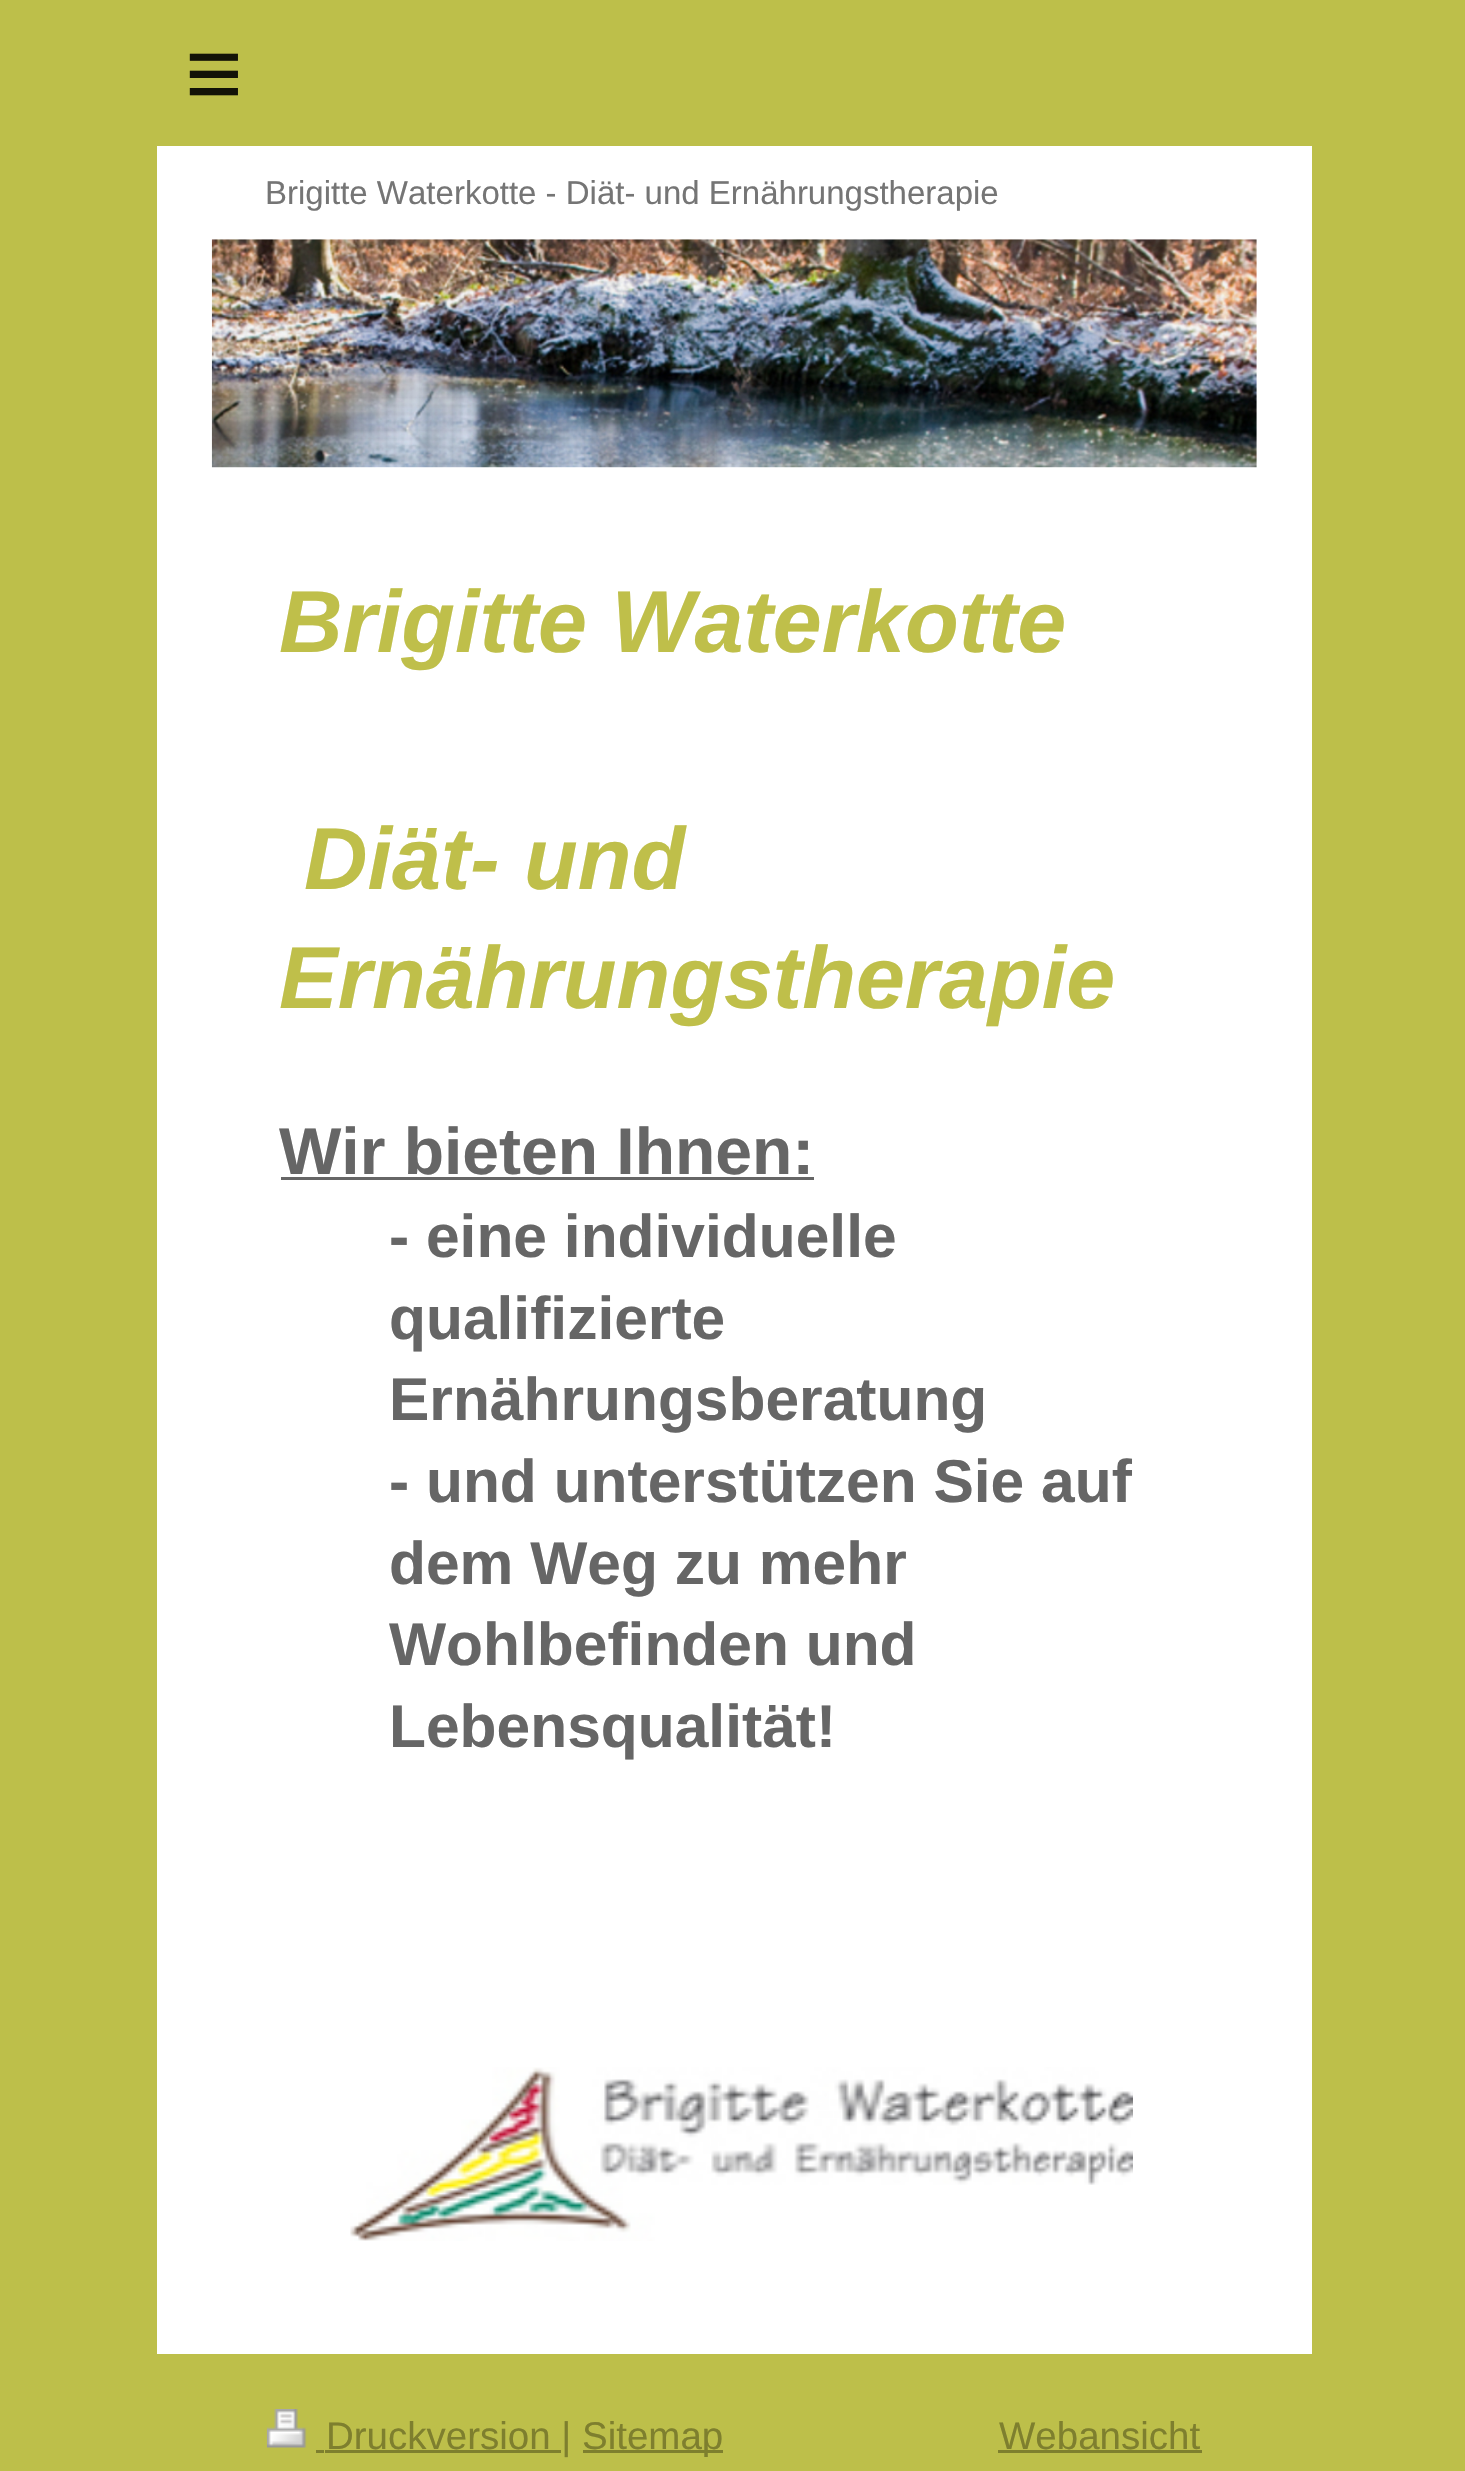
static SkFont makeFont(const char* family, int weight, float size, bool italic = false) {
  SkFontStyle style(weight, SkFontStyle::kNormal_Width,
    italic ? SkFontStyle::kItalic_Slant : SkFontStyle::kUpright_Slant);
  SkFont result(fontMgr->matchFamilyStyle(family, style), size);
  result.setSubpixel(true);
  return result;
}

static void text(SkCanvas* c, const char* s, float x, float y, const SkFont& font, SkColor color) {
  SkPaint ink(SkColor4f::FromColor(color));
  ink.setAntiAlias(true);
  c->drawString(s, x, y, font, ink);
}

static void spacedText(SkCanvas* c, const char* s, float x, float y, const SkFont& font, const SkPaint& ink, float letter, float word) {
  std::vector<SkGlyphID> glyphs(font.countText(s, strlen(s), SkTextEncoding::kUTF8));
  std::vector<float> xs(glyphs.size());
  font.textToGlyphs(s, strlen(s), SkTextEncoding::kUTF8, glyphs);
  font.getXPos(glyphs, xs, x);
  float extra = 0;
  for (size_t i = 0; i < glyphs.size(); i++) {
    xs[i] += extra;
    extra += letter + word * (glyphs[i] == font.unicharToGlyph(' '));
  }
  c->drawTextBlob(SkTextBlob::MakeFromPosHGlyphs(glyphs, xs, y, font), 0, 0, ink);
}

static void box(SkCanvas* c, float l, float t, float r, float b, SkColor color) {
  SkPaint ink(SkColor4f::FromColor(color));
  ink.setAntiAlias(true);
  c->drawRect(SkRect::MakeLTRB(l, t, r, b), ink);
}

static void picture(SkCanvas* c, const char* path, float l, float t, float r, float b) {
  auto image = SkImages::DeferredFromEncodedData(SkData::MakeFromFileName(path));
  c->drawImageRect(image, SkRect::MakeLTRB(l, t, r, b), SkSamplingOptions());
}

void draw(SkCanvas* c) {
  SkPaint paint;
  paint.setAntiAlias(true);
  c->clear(0xffbdbf4a);
  SkFont face1 = makeFont("Liberation Sans", 400, 99);
  paint.setColor(0xff131307);
  spacedText(c, "≡", 185, 107, face1, paint, 29, 0);
  box(c, 157, 146, 1312, 2354, 0xffffffff);
  SkFont face2 = makeFont("Liberation Sans", 400, 33);
  text(c, "Brigitte Waterkotte - Diät- und Ernährungstherapie", 265, 204, face2, 0xff757575);
  picture(c, "img_01.png", 211, 239, 1257, 468);
  picture(c, "img_02.png", 212, 239, 1257, 467);
  SkFont face3 = makeFont("Liberation Sans", 700, 88, true);
  text(c, "Brigitte Waterkotte", 279, 652, face3, 0xffbfbf4a);
  text(c, "Diät- und", 304, 889, face3, 0xffbfbf4a);
  text(c, "Ernährungstherapie", 279, 1008, face3, 0xffbfbf4a);
  SkFont face4 = makeFont("Liberation Sans", 700, 66);
  text(c, "Wir bieten Ihnen:", 279, 1174, face4, 0xff666666);
  box(c, 281, 1177, 814, 1180, 0xff666666);
  SkFont face5 = makeFont("Liberation Sans", 700, 60.5f);
  text(c, "- eine individuelle", 389, 1257, face5, 0xff666666);
  text(c, "qualifizierte", 389, 1339, face5, 0xff666666);
  text(c, "Ernährungsberatung", 389, 1420, face5, 0xff666666);
  text(c, "- und unterstützen Sie auf", 389, 1502, face5, 0xff666666);
  text(c, "dem Weg zu mehr", 389, 1584, face5, 0xff666666);
  text(c, "Wohlbefinden und", 389, 1665, face5, 0xff666666);
  text(c, "Lebensqualität!", 389, 1747, face5, 0xff666666);
  picture(c, "img_03.png", 350, 2067, 1133, 2241);
  picture(c, "img_04.png", 266, 2409, 307, 2448);
  box(c, 325, 2450, 561, 2453, 0xff7e7f2e);
  SkFont face6 = makeFont("Liberation Sans", 400, 38.5f);
  text(c, "Druckversion |", 326, 2449, face6, 0xff7e7f2e);
  box(c, 316, 2450, 324, 2453, 0xff7e7f2e);
  box(c, 583, 2450, 723, 2453, 0xff7e7f2e);
  text(c, "Sitemap", 582, 2449, face6, 0xff7e7f2e);
  text(c, "Webansicht", 999, 2449, face6, 0xff7e7f2e);
  box(c, 998, 2450, 1202, 2453, 0xff7e7f2e);
}
